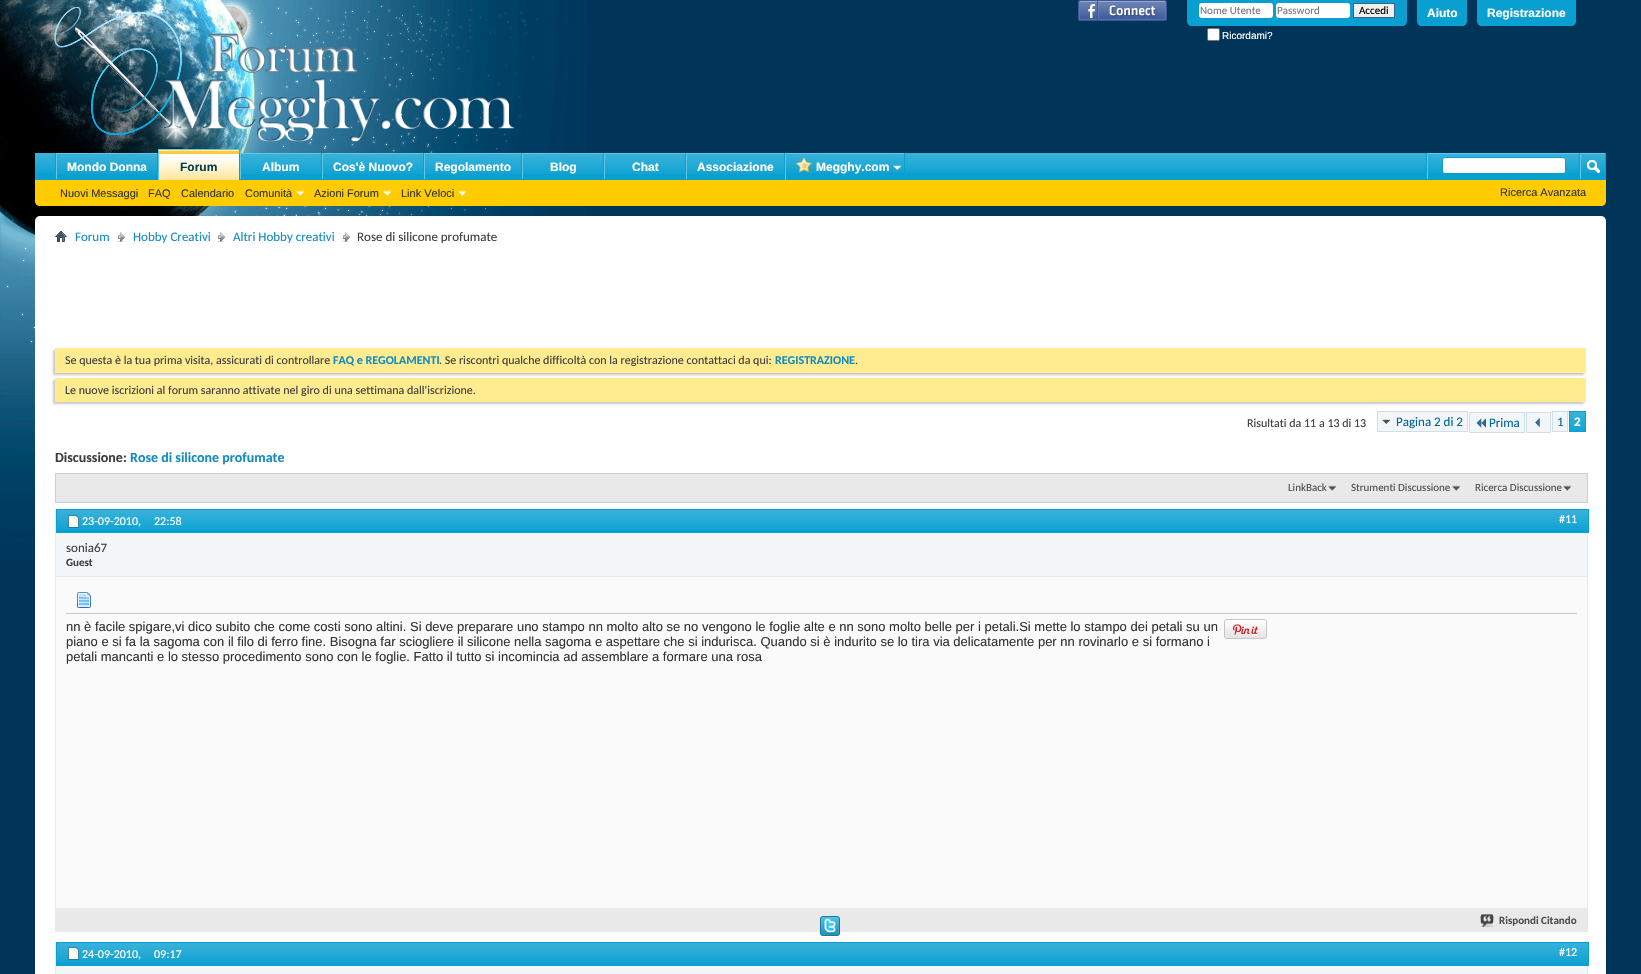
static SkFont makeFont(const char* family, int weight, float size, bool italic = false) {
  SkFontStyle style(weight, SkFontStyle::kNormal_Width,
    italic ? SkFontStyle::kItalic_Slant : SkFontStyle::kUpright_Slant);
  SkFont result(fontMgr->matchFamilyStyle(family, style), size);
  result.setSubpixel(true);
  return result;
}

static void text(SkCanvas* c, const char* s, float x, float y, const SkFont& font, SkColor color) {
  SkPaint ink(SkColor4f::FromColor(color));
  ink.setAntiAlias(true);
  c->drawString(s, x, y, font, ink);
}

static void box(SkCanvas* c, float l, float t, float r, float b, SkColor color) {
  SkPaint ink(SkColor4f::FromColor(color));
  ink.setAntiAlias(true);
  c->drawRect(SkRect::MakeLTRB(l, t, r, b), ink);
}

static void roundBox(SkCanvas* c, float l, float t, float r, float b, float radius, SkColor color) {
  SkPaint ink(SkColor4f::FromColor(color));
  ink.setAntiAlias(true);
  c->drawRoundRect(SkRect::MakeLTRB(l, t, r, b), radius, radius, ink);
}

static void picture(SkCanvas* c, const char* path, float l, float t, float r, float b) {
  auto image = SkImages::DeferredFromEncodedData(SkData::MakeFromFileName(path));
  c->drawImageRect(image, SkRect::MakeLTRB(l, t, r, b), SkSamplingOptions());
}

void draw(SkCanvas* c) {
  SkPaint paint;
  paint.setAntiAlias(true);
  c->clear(0xff003459);
  picture(c, "img_01.png", 0, 0, 587, 561);
  picture(c, "img_02.png", 51, 7, 514, 147);
  picture(c, "img_03.png", 1078, 0, 1167, 21);
  paint.setColor(0xff09a0d1);
  c->drawPath(SkPathBuilder().moveTo(1187, 0).lineTo(1407, 0).lineTo(1407, 21).cubicTo(1407, 24, 1405, 26, 1402, 26).lineTo(1192, 26).cubicTo(1189, 26, 1187, 24, 1187, 21).close().detach(), paint);
  roundBox(c, 1199, 3, 1273, 18, 3, 0xffffffff);
  SkFont face1 = makeFont("Carlito", 400, 11);
  text(c, "Nome Utente", 1200, 14, face1, 0xff777777);
  roundBox(c, 1276, 3, 1350, 18, 3, 0xffffffff);
  text(c, "Password", 1277, 14, face1, 0xff777777);
  paint.setColor(0xffefefef);
  c->drawRect(SkRect::MakeLTRB(1353.5f, 3.5f, 1394.5f, 17.5f), paint);
  paint.setStyle(SkPaint::kStroke_Style);
  paint.setStrokeWidth(1);
  paint.setColor(0xff415d8d);
  c->drawRect(SkRect::MakeLTRB(1353.5f, 3.5f, 1394.5f, 17.5f), paint);
  text(c, "Accedi", 1359, 14, face1, 0xff000000);
  paint.setStyle(SkPaint::kFill_Style);
  paint.setColor(0xffffffff);
  c->drawRoundRect(SkRect::MakeLTRB(1207.5f, 28.5f, 1219.5f, 40.5f), 1.5f, 1.5f, paint);
  paint.setStyle(SkPaint::kStroke_Style);
  paint.setColor(0xff767676);
  c->drawRoundRect(SkRect::MakeLTRB(1207.5f, 28.5f, 1219.5f, 40.5f), 1.5f, 1.5f, paint);
  SkFont face2 = makeFont("Liberation Sans", 400, 10);
  text(c, "Ricordami?", 1222, 39, face2, 0xffffffff);
  paint.setStyle(SkPaint::kFill_Style);
  paint.setColor(0xff09a0d1);
  c->drawPath(SkPathBuilder().moveTo(1417, 0).lineTo(1467, 0).lineTo(1467, 21).cubicTo(1467, 24, 1465, 26, 1462, 26).lineTo(1422, 26).cubicTo(1419, 26, 1417, 24, 1417, 21).close().detach(), paint);
  SkFont face3 = makeFont("Liberation Sans", 700, 12);
  text(c, "Aiuto", 1427, 17, face3, 0xffffffff);
  c->drawPath(SkPathBuilder().moveTo(1477, 0).lineTo(1576, 0).lineTo(1576, 21).cubicTo(1576, 24, 1574, 26, 1571, 26).lineTo(1482, 26).cubicTo(1479, 26, 1477, 24, 1477, 21).close().detach(), paint);
  text(c, "Registrazione", 1487, 17, face3, 0xffffffff);
  paint.setColor(0xffffcc00);
  c->drawPath(SkPathBuilder().moveTo(35, 153).lineTo(1606, 153).lineTo(1606, 201).cubicTo(1606, 204, 1604, 206, 1601, 206).lineTo(40, 206).cubicTo(37, 206, 35, 204, 35, 201).close().detach(), paint);
  box(c, 35, 153, 1606, 179, 0xff09a0d1);
  picture(c, "img_04.png", 35, 153, 1605, 173);
  box(c, 157, 153, 158, 180, 0xff09a0d1);
  box(c, 55, 153, 56, 180, 0xff09a0d1);
  box(c, 57, 154, 157, 173, 0xff09a0d1);
  picture(c, "img_05.png", 57, 154, 157, 174);
  box(c, 56, 153, 157, 154, 0xff63c7e7);
  box(c, 56, 153, 57, 180, 0xff63c7e7);
  text(c, "Mondo Donna", 67, 171, face3, 0xffffffff);
  box(c, 239, 153, 240, 179, 0xff09a0d1);
  box(c, 321, 153, 322, 180, 0xff09a0d1);
  box(c, 240, 153, 321, 154, 0xff63c7e7);
  box(c, 240, 153, 241, 180, 0xff63c7e7);
  box(c, 423, 153, 424, 180, 0xff09a0d1);
  box(c, 322, 153, 423, 154, 0xff63c7e7);
  box(c, 322, 153, 323, 180, 0xff63c7e7);
  box(c, 521, 153, 522, 180, 0xff09a0d1);
  box(c, 424, 153, 521, 154, 0xff63c7e7);
  box(c, 424, 153, 425, 180, 0xff63c7e7);
  box(c, 603, 153, 604, 180, 0xff09a0d1);
  box(c, 522, 153, 603, 154, 0xff63c7e7);
  box(c, 522, 153, 523, 180, 0xff63c7e7);
  box(c, 685, 153, 686, 180, 0xff09a0d1);
  box(c, 604, 153, 685, 154, 0xff63c7e7);
  box(c, 604, 153, 605, 180, 0xff63c7e7);
  box(c, 784, 153, 785, 180, 0xff09a0d1);
  box(c, 686, 153, 784, 154, 0xff63c7e7);
  box(c, 686, 153, 687, 180, 0xff63c7e7);
  box(c, 35, 179, 1606, 180, 0xff09a0d1);
  box(c, 159, 150, 239, 180, 0xffffcc33);
  picture(c, "img_06.png", 159, 150, 239, 180);
  box(c, 158, 149, 239, 150, 0xff63c7e7);
  box(c, 158, 149, 159, 180, 0xff63c7e7);
  text(c, "Forum", 180, 171, face3, 0xff033d4f);
  box(c, 241, 154, 321, 173, 0xff09a0d1);
  picture(c, "img_07.png", 241, 154, 321, 174);
  text(c, "Album", 262, 171, face3, 0xffffffff);
  box(c, 323, 154, 423, 173, 0xff09a0d1);
  picture(c, "img_05.png", 323, 154, 423, 174);
  text(c, "Cos'è Nuovo?", 333, 171, face3, 0xffffffff);
  box(c, 425, 154, 521, 173, 0xff09a0d1);
  picture(c, "img_08.png", 425, 154, 521, 174);
  text(c, "Regolamento", 435, 171, face3, 0xffffffff);
  box(c, 523, 154, 603, 173, 0xff09a0d1);
  picture(c, "img_07.png", 523, 154, 603, 174);
  text(c, "Blog", 550, 171, face3, 0xffffffff);
  box(c, 605, 154, 685, 173, 0xff09a0d1);
  picture(c, "img_07.png", 605, 154, 685, 174);
  text(c, "Chat", 632, 171, face3, 0xffffffff);
  box(c, 687, 154, 784, 173, 0xff09a0d1);
  picture(c, "img_09.png", 687, 154, 784, 174);
  text(c, "Associazione", 697, 171, face3, 0xffffffff);
  box(c, 904, 153, 905, 180, 0xff09a0d1);
  picture(c, "img_10.png", 893, 165, 902, 170);
  box(c, 785, 153, 904, 154, 0xff63c7e7);
  box(c, 785, 153, 786, 180, 0xff63c7e7);
  picture(c, "img_11.png", 796, 158, 812, 173);
  text(c, "Megghy.com", 816, 171, face3, 0xffffffff);
  SkFont face4 = makeFont("Liberation Sans", 400, 11);
  text(c, "Nuovi Messaggi", 60, 197, face4, 0xff333333);
  text(c, "FAQ", 148, 197, face4, 0xff333333);
  text(c, "Calendario", 181, 197, face4, 0xff333333);
  text(c, "Comunità", 245, 197, face4, 0xff333333);
  picture(c, "img_12.png", 296, 190, 305, 196);
  text(c, "Azioni Forum", 314, 197, face4, 0xff333333);
  picture(c, "img_12.png", 383, 190, 392, 196);
  text(c, "Link Veloci", 401, 197, face4, 0xff333333);
  picture(c, "img_12.png", 458, 190, 467, 196);
  box(c, 1426, 153, 1427, 179, 0xff09a0d1);
  box(c, 1427, 153, 1579, 154, 0xff63c7e7);
  box(c, 1427, 153, 1428, 179, 0xff63c7e7);
  paint.setColor(0xffffffff);
  c->drawRoundRect(SkRect::MakeLTRB(1442.5f, 157.5f, 1565.5f, 173.5f), 2.5f, 2.5f, paint);
  paint.setStyle(SkPaint::kStroke_Style);
  paint.setColor(0xff09a0d1);
  c->drawRoundRect(SkRect::MakeLTRB(1442.5f, 157.5f, 1565.5f, 173.5f), 2.5f, 2.5f, paint);
  box(c, 1579, 153, 1580, 179, 0xff09a0d1);
  box(c, 1580, 153, 1605, 154, 0xff63c7e7);
  box(c, 1580, 153, 1581, 179, 0xff63c7e7);
  picture(c, "img_13.png", 1587, 160, 1600, 174);
  text(c, "Ricerca Avanzata", 1500, 196, face4, 0xff333333);
  roundBox(c, 35, 216, 1606, 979, 5, 0xffffffff);
  picture(c, "img_14.png", 55, 231, 67, 242);
  picture(c, "img_15.png", 118, 232, 125, 242);
  SkFont face5 = makeFont("Carlito", 400, 13);
  text(c, "Forum", 75, 241, face5, 0xff158cc0);
  picture(c, "img_15.png", 218, 232, 225, 242);
  text(c, "Hobby Creativi", 133, 241, face5, 0xff158cc0);
  picture(c, "img_15.png", 343, 232, 350, 242);
  text(c, "Altri Hobby creativi", 233, 241, face5, 0xff158cc0);
  text(c, "Rose di silicone profumate", 357, 241, face5, 0xff3e3e3e);
  paint.setStyle(SkPaint::kFill_Style);
  paint.setColor(0xffc8c8c8);
  paint.setMaskFilter(SkMaskFilter::MakeBlur(kNormal_SkBlurStyle, 1));
  c->drawRect(SkRect::MakeLTRB(53, 350, 1584, 375), paint);
  paint.setMaskFilter(nullptr);
  box(c, 55, 348, 1586, 373, 0xffffeb90);
  SkFont face6 = makeFont("Carlito", 400, 12);
  text(c, "Se questa è la tua prima visita, assicurati di controllare", 65, 364, face6, 0xff3e3e3e);
  SkFont face7 = makeFont("Carlito", 700, 12);
  text(c, "FAQ e REGOLAMENTI", 333, 364, face7, 0xff158cc0);
  text(c, ". Se riscontri qualche difficoltà con la registrazione contattaci da qui:", 439, 364, face6, 0xff3e3e3e);
  text(c, "REGISTRAZIONE", 775, 364, face7, 0xff158cc0);
  text(c, ".", 855, 364, face6, 0xff3e3e3e);
  paint.setMaskFilter(SkMaskFilter::MakeBlur(kNormal_SkBlurStyle, 1));
  c->drawRect(SkRect::MakeLTRB(53, 380, 1584, 404), paint);
  paint.setMaskFilter(nullptr);
  box(c, 55, 378, 1586, 402, 0xffffeb90);
  text(c, "Le nuove iscrizioni al forum saranno attivate nel giro di una settimana dall'iscrizione.", 65, 394, face6, 0xff3e3e3e);
  text(c, "Risultati da 11 a 13 di 13", 1247, 427, face6, 0xff3e3e3e);
  box(c, 1378, 412, 1467, 431, 0xfff2f6f8);
  picture(c, "img_16.png", 1382, 419, 1391, 425);
  paint.setStyle(SkPaint::kStroke_Style);
  paint.setColor(0xffcedfeb);
  c->drawRect(SkRect::MakeLTRB(1377.5f, 411.5f, 1467.5f, 431.5f), paint);
  text(c, "Pagina 2 di 2", 1396, 426, face5, 0xff006699);
  box(c, 1470, 413, 1524, 432, 0xfff2f6f8);
  picture(c, "img_17.png", 1476, 418, 1486, 428);
  text(c, "Prima", 1489, 427, face5, 0xff006699);
  box(c, 1469, 412, 1525, 413, 0xffcedfeb);
  box(c, 1469, 432, 1489, 433, 0xffcedfeb);
  box(c, 1469, 412, 1470, 433, 0xffcedfeb);
  box(c, 1524, 412, 1525, 433, 0xffcedfeb);
  box(c, 1489, 432, 1525, 433, 0xffcedfeb);
  paint.setStyle(SkPaint::kFill_Style);
  paint.setColor(0xfff2f6f8);
  c->drawRect(SkRect::MakeLTRB(1526.5f, 412.5f, 1550.5f, 432.5f), paint);
  paint.setStyle(SkPaint::kStroke_Style);
  paint.setColor(0xffcedfeb);
  c->drawRect(SkRect::MakeLTRB(1526.5f, 412.5f, 1550.5f, 432.5f), paint);
  picture(c, "img_18.png", 1535, 418, 1540, 427);
  paint.setStyle(SkPaint::kFill_Style);
  paint.setColor(0xfff2f6f8);
  c->drawRect(SkRect::MakeLTRB(1552.5f, 411.5f, 1567.5f, 431.5f), paint);
  paint.setStyle(SkPaint::kStroke_Style);
  paint.setColor(0xffcedfeb);
  c->drawRect(SkRect::MakeLTRB(1552.5f, 411.5f, 1567.5f, 431.5f), paint);
  text(c, "1", 1557, 426, face5, 0xff006699);
  box(c, 1570, 412, 1585, 431, 0xff09a0d1);
  picture(c, "img_19.png", 1570, 412, 1585, 431);
  paint.setColor(0xff09a0d1);
  c->drawRect(SkRect::MakeLTRB(1569.5f, 411.5f, 1585.5f, 431.5f), paint);
  SkFont face8 = makeFont("Carlito", 700, 13);
  text(c, "2", 1574, 426, face8, 0xffffffff);
  SkFont face9 = makeFont("Carlito", 700, 14);
  text(c, "Discussione:", 55, 462, face9, 0xff3e3e3e);
  text(c, "Rose di silicone profumate", 130, 462, face9, 0xff158cc0);
  box(c, 56, 475, 1587, 502, 0xffe9e9e9);
  box(c, 55, 474, 1588, 475, 0xffededed);
  paint.setColor(0xffcecece);
  c->drawRect(SkRect::MakeLTRB(55.5f, 473.5f, 1587.5f, 502.5f), paint);
  picture(c, "img_20.png", 1328, 485, 1337, 492);
  text(c, "LinkBack", 1288, 491, face1, 0xff4e4e4e);
  picture(c, "img_20.png", 1452, 485, 1461, 492);
  text(c, "Strumenti Discussione", 1351, 491, face1, 0xff4e4e4e);
  picture(c, "img_20.png", 1563, 485, 1572, 492);
  text(c, "Ricerca Discussione", 1475, 491, face1, 0xff4e4e4e);
  paint.setColor(0xffe9e9e9);
  c->drawRect(SkRect::MakeLTRB(55.5f, 509.5f, 1587.5f, 931.5f), paint);
  box(c, 57, 510, 1588, 532, 0xff09a0d1);
  picture(c, "img_21.png", 57, 510, 1588, 530);
  paint.setColor(0xff09a0d1);
  c->drawRect(SkRect::MakeLTRB(56.5f, 509.5f, 1588.5f, 532.5f), paint);
  picture(c, "img_22.png", 68, 515, 79, 528);
  text(c, "23-09-2010,", 82, 525, face6, 0xffffffff);
  text(c, "22:58", 154, 525, face6, 0xffffffff);
  text(c, "#11", 1559, 523, face6, 0xffffffff);
  box(c, 56, 533, 1587, 576, 0xfff2f6f8);
  box(c, 56, 576, 1587, 577, 0xffe9e9e9);
  text(c, "sonia67", 66, 552, face5, 0xff3e3e3e);
  SkFont face10 = makeFont("Carlito", 700, 11);
  text(c, "Guest", 66, 566, face10, 0xff3e3e3e);
  box(c, 56, 577, 1587, 908, 0xfffafafa);
  box(c, 66, 613, 1577, 614, 0xffc8c8c8);
  picture(c, "img_23.png", 77, 592, 91, 608);
  SkFont face11 = makeFont("Liberation Sans", 400, 13);
  text(c, "nn è facile spigare,vi dico subito che come costi sono altini. Si deve preparare uno stampo nn molto alto se no vengono le foglie alte e nn sono molto belle per i petali.Si mette lo stampo dei petali su un", 66, 631, face11, 0xff333333);
  text(c, "piano e si fa la sagoma con il filo di ferro fine. Bisogna far sciogliere il silicone nella sagoma e aspettare che si indurisca. Quando si è indurito se lo tira via delicatamente per nn rovinarlo e si formano i", 66, 646, face11, 0xff333333);
  text(c, "petali mancanti e lo stesso procedimento sono con le foglie. Fatto il tutto si incomincia ad assemblare a formare una rosa", 66, 661, face11, 0xff333333);
  picture(c, "img_24.png", 1224, 619, 1267, 639);
  box(c, 56, 908, 1587, 931, 0xffe9e9e9);
  picture(c, "img_25.png", 820, 916, 840, 936);
  picture(c, "img_26.png", 1480, 914, 1494, 927);
  text(c, "Rispondi Citando", 1499, 924, face10, 0xff4e4e4e);
  paint.setColor(0xffe9e9e9);
  c->drawRect(SkRect::MakeLTRB(55.5f, 942.5f, 1587.5f, 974.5f), paint);
  box(c, 57, 943, 1588, 965, 0xff09a0d1);
  picture(c, "img_21.png", 57, 943, 1588, 963);
  paint.setColor(0xff09a0d1);
  c->drawRect(SkRect::MakeLTRB(56.5f, 942.5f, 1588.5f, 965.5f), paint);
  picture(c, "img_27.png", 68, 947, 79, 960);
  text(c, "24-09-2010,", 82, 958, face6, 0xffffffff);
  text(c, "09:17", 154, 958, face6, 0xffffffff);
  text(c, "#12", 1559, 956, face6, 0xffffffff);
  box(c, 56, 966, 1587, 974, 0xfff2f6f8);
}
